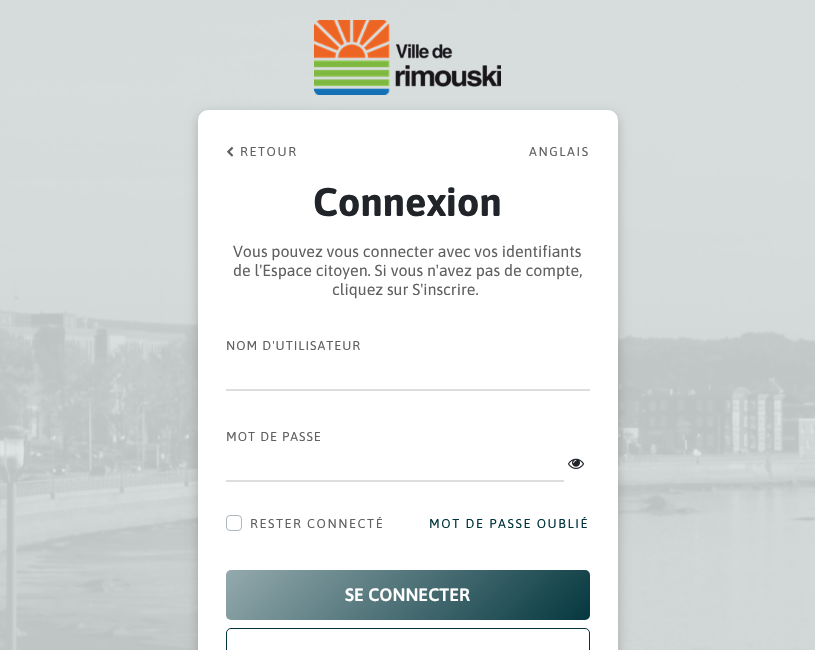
static SkFont makeFont(const char* family, int weight, float size, bool italic = false) {
  SkFontStyle style(weight, SkFontStyle::kNormal_Width,
    italic ? SkFontStyle::kItalic_Slant : SkFontStyle::kUpright_Slant);
  SkFont result(fontMgr->matchFamilyStyle(family, style), size);
  result.setSubpixel(true);
  return result;
}

static void text(SkCanvas* c, const char* s, float x, float y, const SkFont& font, SkColor color) {
  SkPaint ink(SkColor4f::FromColor(color));
  ink.setAntiAlias(true);
  c->drawString(s, x, y, font, ink);
}

static void spacedText(SkCanvas* c, const char* s, float x, float y, const SkFont& font, const SkPaint& ink, float letter, float word) {
  std::vector<SkGlyphID> glyphs(font.countText(s, strlen(s), SkTextEncoding::kUTF8));
  std::vector<float> xs(glyphs.size());
  font.textToGlyphs(s, strlen(s), SkTextEncoding::kUTF8, glyphs);
  font.getXPos(glyphs, xs, x);
  float extra = 0;
  for (size_t i = 0; i < glyphs.size(); i++) {
    xs[i] += extra;
    extra += letter + word * (glyphs[i] == font.unicharToGlyph(' '));
  }
  c->drawTextBlob(SkTextBlob::MakeFromPosHGlyphs(glyphs, xs, y, font), 0, 0, ink);
}

static void box(SkCanvas* c, float l, float t, float r, float b, SkColor color) {
  SkPaint ink(SkColor4f::FromColor(color));
  ink.setAntiAlias(true);
  c->drawRect(SkRect::MakeLTRB(l, t, r, b), ink);
}

static void roundBox(SkCanvas* c, float l, float t, float r, float b, float radius, SkColor color) {
  SkPaint ink(SkColor4f::FromColor(color));
  ink.setAntiAlias(true);
  c->drawRoundRect(SkRect::MakeLTRB(l, t, r, b), radius, radius, ink);
}

static void picture(SkCanvas* c, const char* path, float l, float t, float r, float b) {
  auto image = SkImages::DeferredFromEncodedData(SkData::MakeFromFileName(path));
  c->drawImageRect(image, SkRect::MakeLTRB(l, t, r, b), SkSamplingOptions());
}

void draw(SkCanvas* c) {
  SkPaint paint;
  paint.setAntiAlias(true);
  c->clear(0xffffffff);
  picture(c, "img_01.png", 0, 0, 815, 650);
  picture(c, "img_02.png", 314, 20, 501, 95);
  paint.setColor(0x33000000);
  paint.setMaskFilter(SkMaskFilter::MakeBlur(kNormal_SkBlurStyle, 6));
  c->drawRoundRect(SkRect::MakeLTRB(198, 114, 618, 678), 10, 10, paint);
  paint.setMaskFilter(nullptr);
  roundBox(c, 198, 110, 618, 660, 10, 0xffffffff);
  picture(c, "img_03.png", 227, 146, 234, 157);
  SkFont face1 = makeFont("Asap", 400, 12.75f);
  paint.setColor(0xff606060);
  spacedText(c, "RETOUR", 240, 156, face1, paint, 1.6f, 0);
  SkFont face2 = makeFont("Asap", 700, 40);
  text(c, "Connexion", 313, 216, face2, 0xff212529);
  SkFont face3 = makeFont("Asap", 400, 16);
  text(c, "Vous pouvez vous connecter avec vos identifiants", 233, 257, face3, 0xff606060);
  text(c, "de l'Espace citoyen. Si vous n'avez pas de compte,", 233, 276, face3, 0xff606060);
  text(c, "cliquez sur S'inscrire.", 332, 295, face3, 0xff606060);
  spacedText(c, "NOM D'UTILISATEUR", 226, 350, face1, paint, 1, 0);
  box(c, 226, 389, 590, 391, 0xffdddddd);
  spacedText(c, "MOT DE PASSE", 226, 441, face1, paint, 1, 0);
  picture(c, "img_04.png", 568, 458, 584, 469);
  box(c, 226, 480, 564, 482, 0xffdddddd);
  paint.setStyle(SkPaint::kStroke_Style);
  paint.setStrokeWidth(1);
  paint.setColor(0xffadb5bd);
  c->drawRoundRect(SkRect::MakeLTRB(226.5f, 515.5f, 241.5f, 530.5f), 3.5f, 3.5f, paint);
  paint.setStyle(SkPaint::kFill_Style);
  paint.setColor(0xff606060);
  spacedText(c, "RESTER CONNECTÉ", 250, 528, face1, paint, 1.6f, 0);
  paint.setColor(0xff00333b);
  spacedText(c, "MOT DE PASSE OUBLIÉ", 429, 528, face1, paint, 1.6f, 0);
  roundBox(c, 226, 570, 590, 620, 5, 0xff00333b);
  SkFont face4 = makeFont("Asap", 600, 18);
  text(c, "SE CONNECTER", 345, 601, face4, 0xffffffff);
  {
    const SkColor colors[] = {0x99ffffff, 0x00ffffff};
    const float stops[] = {0, 1};
    const SkPoint ends[] = {{297, 484}, {519, 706}};
    paint.setShader(SkGradientShader::MakeLinear(ends, colors, stops, 2, SkTileMode::kClamp));
    paint.setAlpha(255);
  }
  c->drawRect(SkRect::MakeLTRB(226, 570, 590, 620), paint);
  paint.setStyle(SkPaint::kStroke_Style);
  paint.setShader(nullptr);
  paint.setColor(0xff00333b);
  c->drawRoundRect(SkRect::MakeLTRB(226.5f, 628.5f, 589.5f, 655.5f), 4.5f, 4.5f, paint);
  paint.setStyle(SkPaint::kFill_Style);
  paint.setColor(0xff606060);
  spacedText(c, "ANGLAIS", 529, 156, face1, paint, 1.6f, 0);
}
